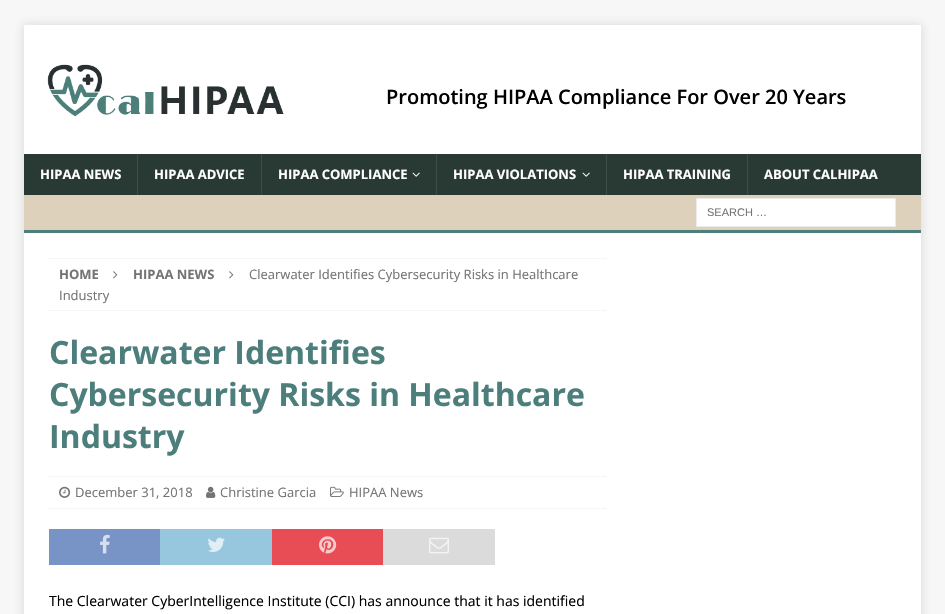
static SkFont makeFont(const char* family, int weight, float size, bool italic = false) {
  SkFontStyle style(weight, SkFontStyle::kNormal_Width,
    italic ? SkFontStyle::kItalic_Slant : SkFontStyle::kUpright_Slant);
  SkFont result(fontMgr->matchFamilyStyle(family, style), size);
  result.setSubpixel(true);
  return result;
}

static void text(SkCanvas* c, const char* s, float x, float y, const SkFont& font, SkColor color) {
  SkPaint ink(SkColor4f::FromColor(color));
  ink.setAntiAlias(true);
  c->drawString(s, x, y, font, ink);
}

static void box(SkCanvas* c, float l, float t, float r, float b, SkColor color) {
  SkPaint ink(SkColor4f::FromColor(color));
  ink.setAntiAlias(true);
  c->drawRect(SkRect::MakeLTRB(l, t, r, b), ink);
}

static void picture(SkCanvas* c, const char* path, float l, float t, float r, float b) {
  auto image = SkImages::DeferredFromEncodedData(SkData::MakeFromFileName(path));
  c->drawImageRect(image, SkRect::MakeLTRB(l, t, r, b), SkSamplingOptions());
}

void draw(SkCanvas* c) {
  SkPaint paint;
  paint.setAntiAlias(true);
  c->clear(0xfff7f7f7);
  paint.setColor(0x2b323232);
  paint.setMaskFilter(SkMaskFilter::MakeBlur(kNormal_SkBlurStyle, 5));
  c->drawRect(SkRect::MakeLTRB(24, 25, 921, 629), paint);
  paint.setMaskFilter(nullptr);
  box(c, 24, 25, 921, 154, 0xffffffff);
  picture(c, "img_01.png", 47, 64, 284, 117);
  SkFont face1 = makeFont("Open Sans", 600, 20);
  text(c, "Promoting HIPAA Compliance For Over 20 Years", 386, 104, face1, 0xff000000);
  box(c, 24, 154, 921, 195, 0xff293933);
  SkFont face2 = makeFont("Open Sans", 700, 13);
  text(c, "HIPAA NEWS", 40, 179, face2, 0xffffffff);
  box(c, 137, 154, 138, 195, 0xff3e4d47);
  text(c, "HIPAA ADVICE", 154, 179, face2, 0xffffffff);
  box(c, 261, 154, 262, 195, 0xff3e4d47);
  text(c, "HIPAA COMPLIANCE", 278, 179, face2, 0xffffffff);
  picture(c, "img_02.png", 412, 172, 420, 177);
  box(c, 436, 154, 437, 195, 0xff3e4d47);
  text(c, "HIPAA VIOLATIONS", 453, 179, face2, 0xffffffff);
  picture(c, "img_02.png", 582, 172, 590, 177);
  box(c, 606, 154, 607, 195, 0xff3e4d47);
  text(c, "HIPAA TRAINING", 623, 179, face2, 0xffffffff);
  box(c, 747, 154, 748, 195, 0xff3e4d47);
  text(c, "ABOUT CALHIPAA", 764, 179, face2, 0xffffffff);
  box(c, 24, 195, 921, 230, 0xffddd1bc);
  box(c, 24, 230, 921, 233, 0xff4c7e7b);
  paint.setColor(0xffffffff);
  c->drawRect(SkRect::MakeLTRB(696.5f, 198.5f, 895.5f, 226.5f), paint);
  paint.setStyle(SkPaint::kStroke_Style);
  paint.setStrokeWidth(1);
  paint.setColor(0xffebebeb);
  c->drawRect(SkRect::MakeLTRB(696.5f, 198.5f, 895.5f, 226.5f), paint);
  SkFont face3 = makeFont("Liberation Sans", 400, 11);
  text(c, "SEARCH …", 707, 216, face3, 0xff747474);
  box(c, 24, 233, 921, 614, 0xffffffff);
  paint.setPathEffect(SkDashPathEffect::Make({{1, 1}}, 0));
  c->drawPath(SkPathBuilder().moveTo(49, 258.5f).lineTo(607, 258.5f).detach(), paint);
  paint.setPathEffect(nullptr);
  paint.setPathEffect(SkDashPathEffect::Make({{1, 1}}, 0));
  c->drawPath(SkPathBuilder().moveTo(49, 310.5f).lineTo(607, 310.5f).detach(), paint);
  paint.setPathEffect(nullptr);
  text(c, "HOME", 59, 279, face2, 0xff747474);
  picture(c, "img_03.png", 113, 271, 118, 279);
  text(c, "HIPAA NEWS", 133, 279, face2, 0xff747474);
  picture(c, "img_03.png", 229, 271, 234, 279);
  SkFont face4 = makeFont("Open Sans", 400, 13);
  text(c, "Clearwater Identifies Cybersecurity Risks in Healthcare", 249, 279, face4, 0xff747474);
  text(c, "Industry", 59, 300, face4, 0xff747474);
  SkFont face5 = makeFont("Open Sans", 700, 32);
  text(c, "Clearwater Identifies", 49, 364, face5, 0xff4c7e7b);
  text(c, "Cybersecurity Risks in Healthcare", 49, 406, face5, 0xff4c7e7b);
  text(c, "Industry", 49, 448, face5, 0xff4c7e7b);
  paint.setPathEffect(SkDashPathEffect::Make({{1, 1}}, 0));
  c->drawPath(SkPathBuilder().moveTo(49, 476.5f).lineTo(607, 476.5f).detach(), paint);
  paint.setPathEffect(nullptr);
  paint.setPathEffect(SkDashPathEffect::Make({{1, 1}}, 0));
  c->drawPath(SkPathBuilder().moveTo(49, 508.5f).lineTo(607, 508.5f).detach(), paint);
  paint.setPathEffect(nullptr);
  picture(c, "img_04.png", 59, 486, 71, 498);
  text(c, "December 31, 2018", 75, 497, face4, 0xff747474);
  picture(c, "img_05.png", 206, 486, 216, 498);
  text(c, "Christine Garcia", 220, 497, face4, 0xff747474);
  picture(c, "img_06.png", 330, 486, 344, 497);
  text(c, "HIPAA News", 349, 497, face4, 0xff747474);
  box(c, 49, 529, 160, 565, 0xff7893c6);
  picture(c, "img_07.png", 100, 534, 110, 554);
  box(c, 160, 529, 272, 565, 0xff97c6df);
  picture(c, "img_08.png", 207, 537, 225, 552);
  box(c, 272, 529, 383, 565, 0xffe84d56);
  picture(c, "img_09.png", 319, 536, 337, 554);
  box(c, 383, 529, 495, 565, 0xffdbdbdb);
  picture(c, "img_10.png", 429, 537, 449, 554);
  SkFont face6 = makeFont("Open Sans", 400, 14);
  text(c, "The Clearwater CyberIntelligence Institute (CCI) has announce that it has identified", 49, 606, face6, 0xff000000);
}
